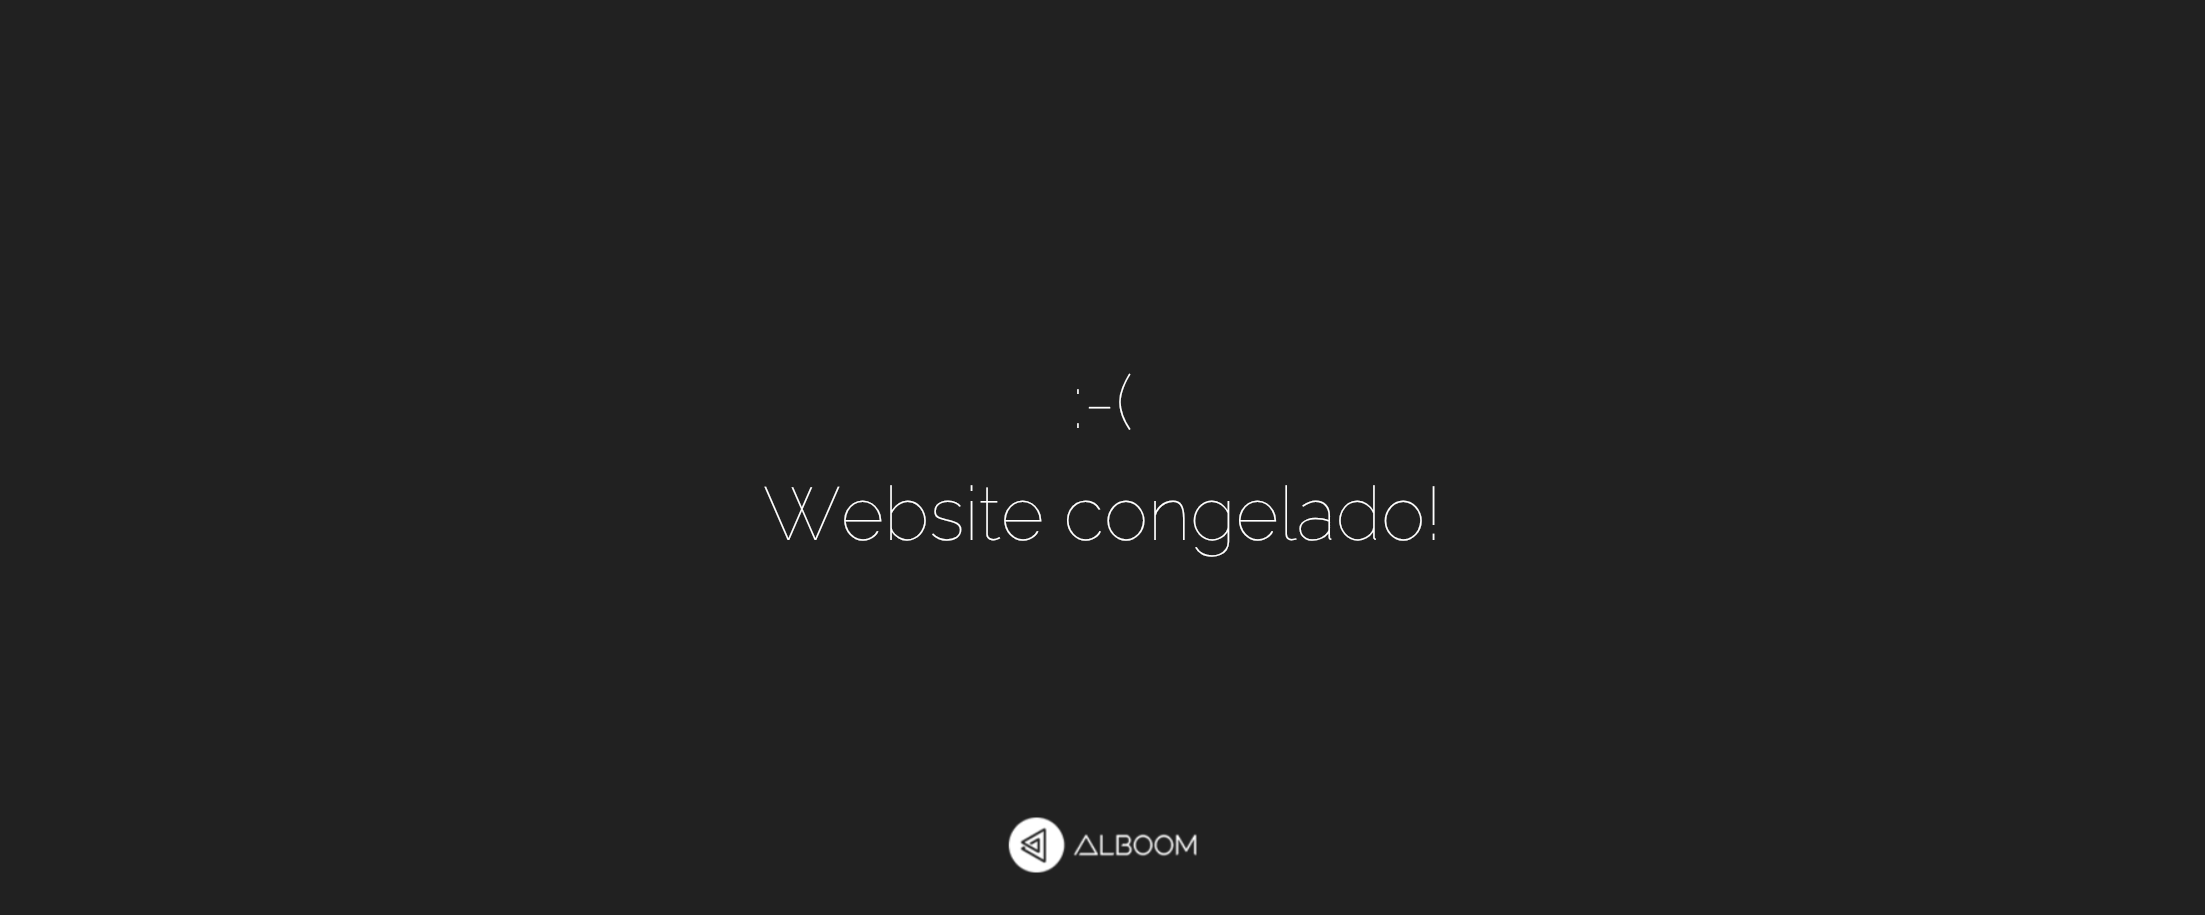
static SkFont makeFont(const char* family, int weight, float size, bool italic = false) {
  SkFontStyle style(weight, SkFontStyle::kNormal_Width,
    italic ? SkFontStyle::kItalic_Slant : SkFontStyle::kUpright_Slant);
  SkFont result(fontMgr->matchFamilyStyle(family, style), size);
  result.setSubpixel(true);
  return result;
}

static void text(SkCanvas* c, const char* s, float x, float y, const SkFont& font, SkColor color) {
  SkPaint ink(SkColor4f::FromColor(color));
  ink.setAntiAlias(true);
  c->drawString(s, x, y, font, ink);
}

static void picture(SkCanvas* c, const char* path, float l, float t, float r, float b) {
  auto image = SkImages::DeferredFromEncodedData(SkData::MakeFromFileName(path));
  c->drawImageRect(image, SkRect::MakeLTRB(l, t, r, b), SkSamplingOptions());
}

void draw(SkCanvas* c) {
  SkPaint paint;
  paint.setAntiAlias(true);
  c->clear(0xff212121);
  SkFont face1 = makeFont("Raleway", 100, 75);
  text(c, ":-(", 1072, 428, face1, 0xffffffff);
  text(c, "Website congelado!", 763, 540, face1, 0xffffffff);
  picture(c, "img_01.png", 1008, 817, 1197, 873);
}
